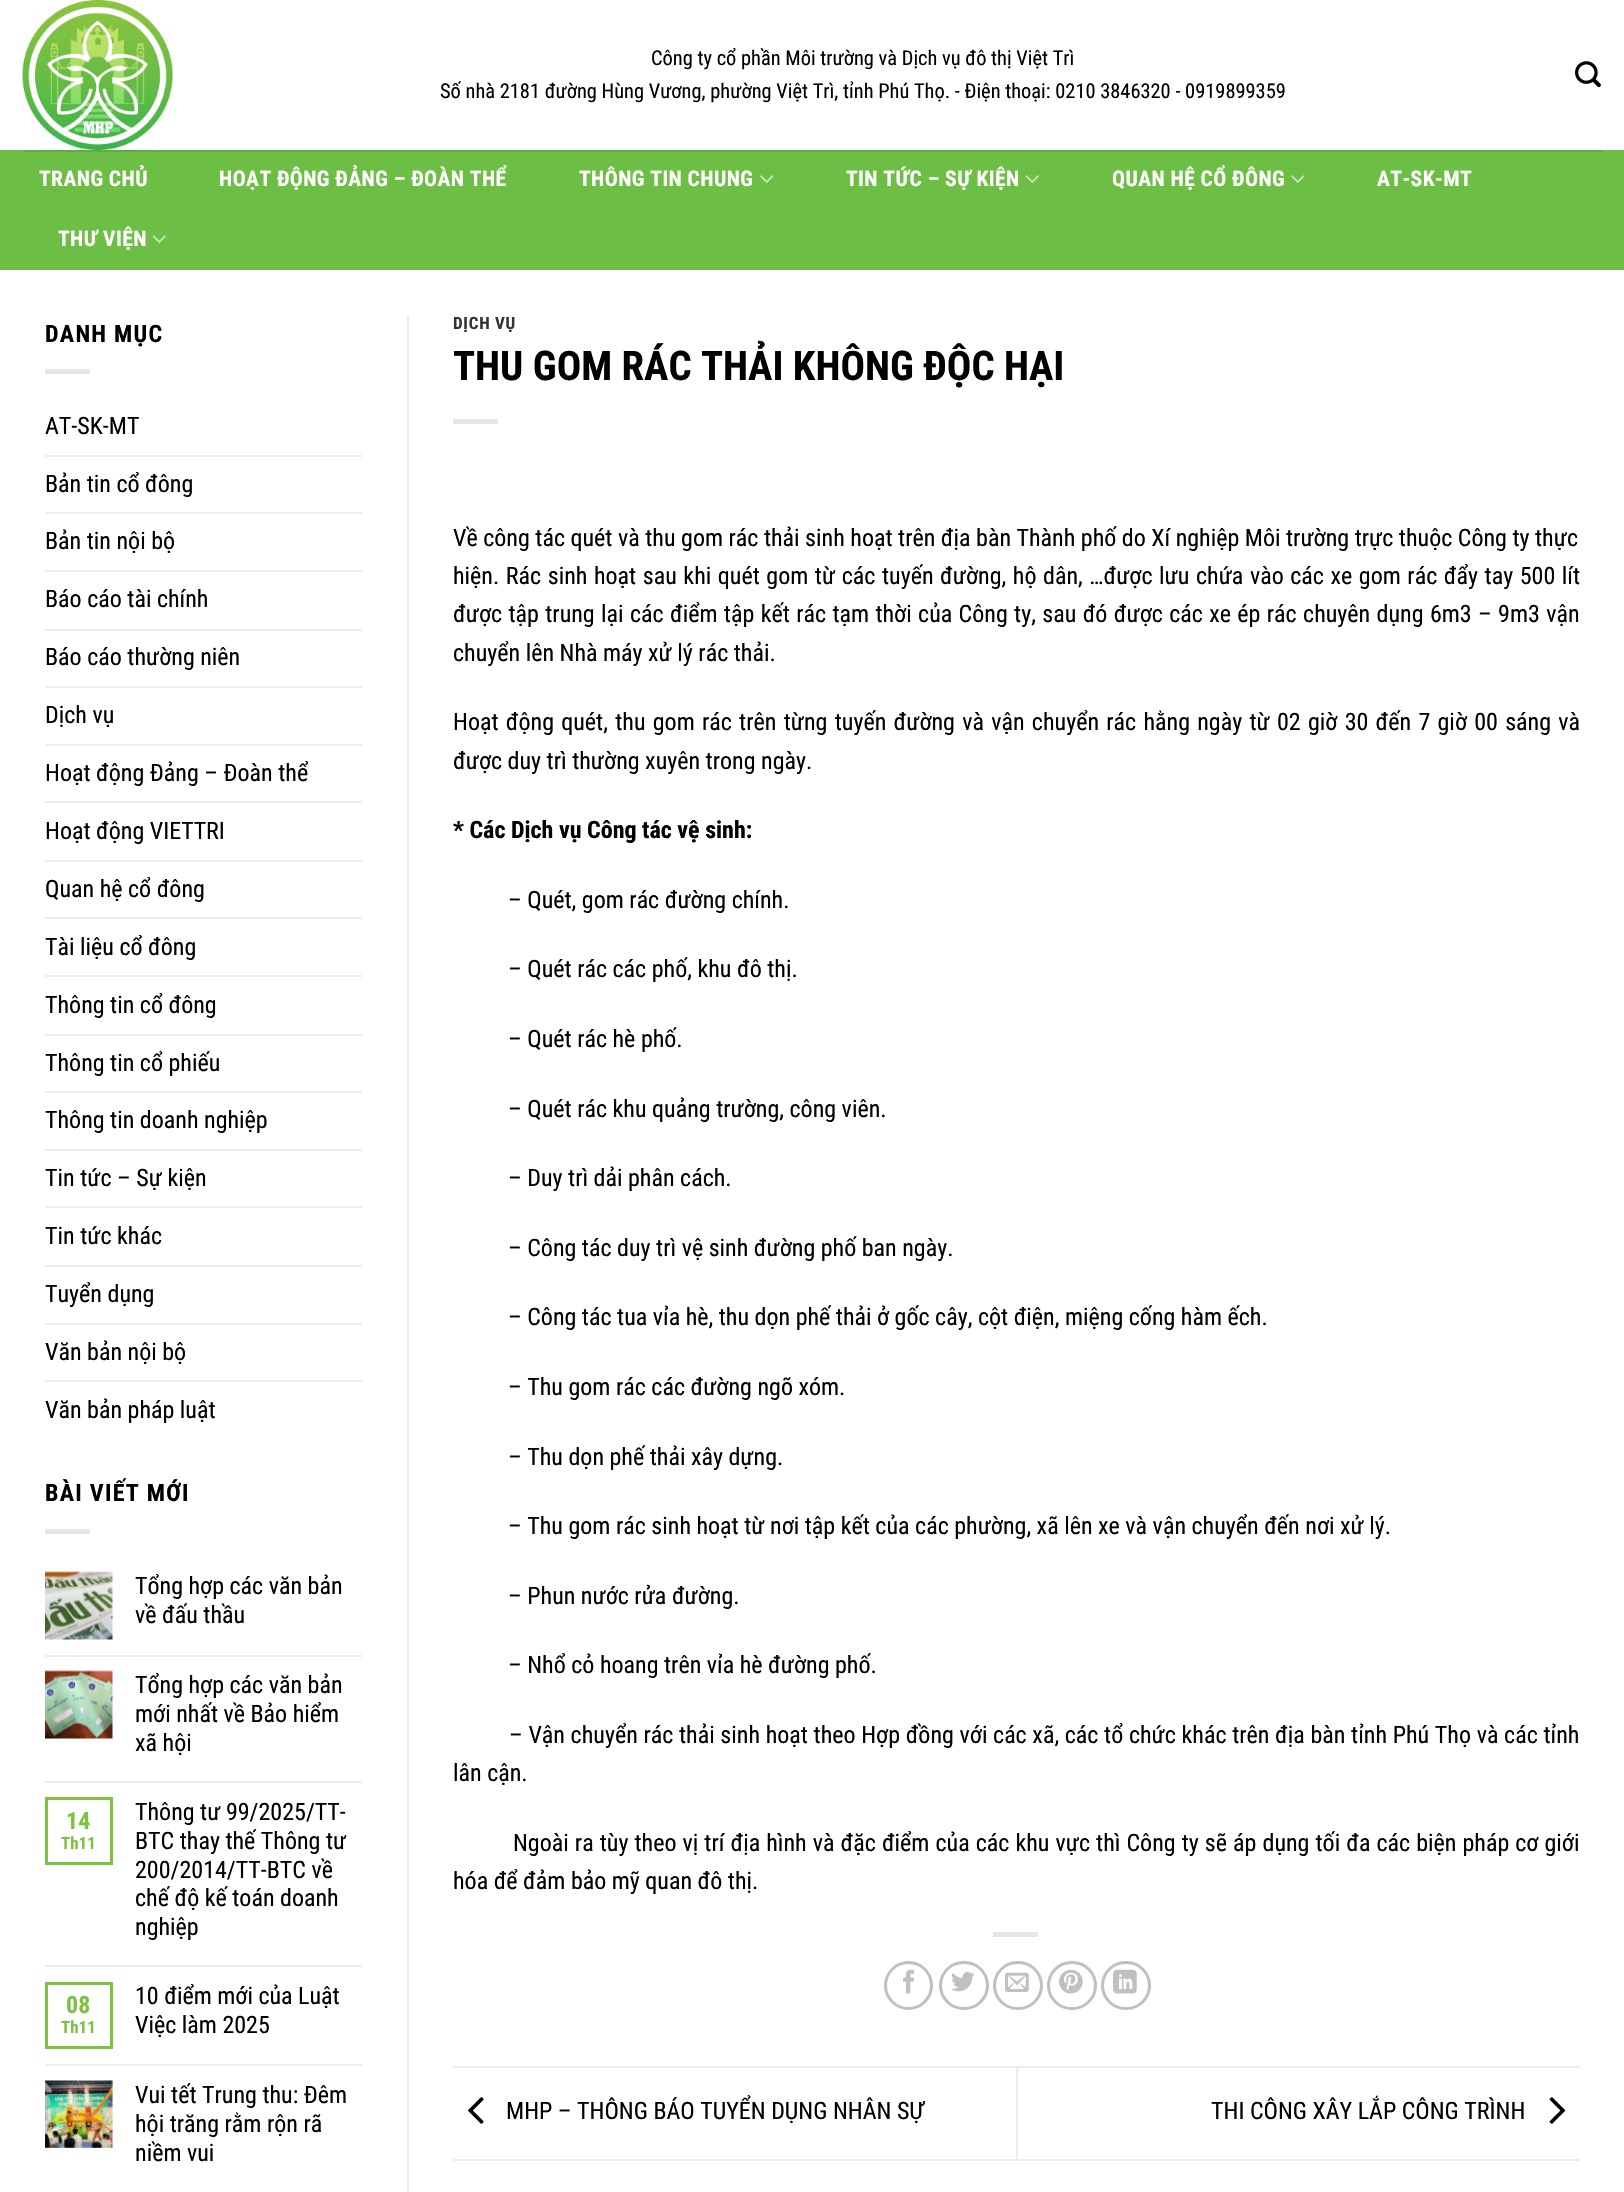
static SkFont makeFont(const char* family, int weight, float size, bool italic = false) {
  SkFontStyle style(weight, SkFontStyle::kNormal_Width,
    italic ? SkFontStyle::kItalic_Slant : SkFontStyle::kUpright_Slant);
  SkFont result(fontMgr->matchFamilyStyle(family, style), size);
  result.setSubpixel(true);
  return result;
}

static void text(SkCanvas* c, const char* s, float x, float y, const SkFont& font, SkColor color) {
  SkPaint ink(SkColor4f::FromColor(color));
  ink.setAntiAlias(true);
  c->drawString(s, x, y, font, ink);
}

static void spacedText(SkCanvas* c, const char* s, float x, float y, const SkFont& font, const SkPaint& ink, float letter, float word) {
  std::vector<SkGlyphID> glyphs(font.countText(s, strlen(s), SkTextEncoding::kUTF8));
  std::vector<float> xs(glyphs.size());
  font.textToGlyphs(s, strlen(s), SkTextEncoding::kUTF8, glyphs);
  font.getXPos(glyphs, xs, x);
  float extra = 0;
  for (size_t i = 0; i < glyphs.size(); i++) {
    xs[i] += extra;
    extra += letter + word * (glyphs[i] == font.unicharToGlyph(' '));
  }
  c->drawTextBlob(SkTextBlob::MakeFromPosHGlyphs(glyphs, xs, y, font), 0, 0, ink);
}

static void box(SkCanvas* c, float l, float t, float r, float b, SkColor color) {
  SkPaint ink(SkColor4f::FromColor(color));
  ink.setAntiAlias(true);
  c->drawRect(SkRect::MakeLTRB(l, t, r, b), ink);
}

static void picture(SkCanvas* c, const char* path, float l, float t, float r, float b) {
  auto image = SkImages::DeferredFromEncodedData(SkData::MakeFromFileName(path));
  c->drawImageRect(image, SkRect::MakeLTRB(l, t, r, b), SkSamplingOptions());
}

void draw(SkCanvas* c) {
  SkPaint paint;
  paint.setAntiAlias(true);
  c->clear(0xffffffff);
  picture(c, "img_01.png", 22, 0, 173, 150);
  SkFont face1 = makeFont("Roboto Condensed", 400, 20.4f);
  text(c, "Công ty cổ phần Môi trường và Dịch vụ đô thị Việt Trì", 651, 65, face1, 0xff000000);
  text(c, "Số nhà 2181 đường Hùng Vương, phường Việt Trì, tỉnh Phú Thọ. - Điện thoại: 0210 3846320 - 0919899359", 440, 98, face1, 0xff000000);
  picture(c, "img_02.png", 1575, 61, 1601, 88);
  box(c, 0, 150, 1624, 270, 0xff6dbe45);
  box(c, 23, 150, 1602, 152, 0xff62ab3e);
  SkFont face2 = makeFont("Roboto Condensed", 700, 21.6f);
  paint.setColor(0xffffffff);
  spacedText(c, "TRANG CHỦ", 39, 186, face2, paint, 0.4f, 0);
  spacedText(c, "HOẠT ĐỘNG ĐẢNG – ĐOÀN THỂ", 219, 186, face2, paint, 0.4f, 0);
  spacedText(c, "THÔNG TIN CHUNG", 579, 186, face2, paint, 0.4f, 0);
  picture(c, "img_03.png", 760, 175, 774, 183);
  spacedText(c, "TIN TỨC – SỰ KIỆN", 846, 186, face2, paint, 0.4f, 0);
  picture(c, "img_04.png", 1025, 175, 1039, 183);
  spacedText(c, "QUAN HỆ CỔ ĐÔNG", 1112, 186, face2, paint, 0.4f, 0);
  picture(c, "img_03.png", 1291, 175, 1305, 183);
  spacedText(c, "AT-SK-MT", 1377, 186, face2, paint, 0.4f, 0);
  spacedText(c, "THƯ VIỆN", 58, 246, face2, paint, 0.4f, 0);
  picture(c, "img_04.png", 152, 235, 166, 243);
  SkFont face3 = makeFont("Roboto Condensed", 700, 24);
  paint.setColor(0xff000000);
  spacedText(c, "DANH MỤC", 45, 342, face3, paint, 1.25f, 0);
  box(c, 45, 369, 90, 374, 0xffe6e6e6);
  SkFont face4 = makeFont("Roboto Condensed", 400, 24);
  text(c, "AT-SK-MT", 45, 434, face4, 0xff000000);
  box(c, 45, 455, 362, 457, 0xffececec);
  text(c, "Bản tin cổ đông", 45, 492, face4, 0xff000000);
  box(c, 45, 512, 362, 514, 0xffececec);
  text(c, "Bản tin nội bộ", 45, 549, face4, 0xff000000);
  box(c, 45, 570, 362, 572, 0xffececec);
  text(c, "Báo cáo tài chính", 45, 607, face4, 0xff000000);
  box(c, 45, 629, 362, 631, 0xffececec);
  text(c, "Báo cáo thường niên", 45, 665, face4, 0xff000000);
  box(c, 45, 686, 362, 688, 0xffececec);
  text(c, "Dịch vụ", 45, 723, face4, 0xff000000);
  box(c, 45, 744, 362, 746, 0xffececec);
  text(c, "Hoạt động Đảng – Đoàn thể", 45, 781, face4, 0xff000000);
  box(c, 45, 801, 362, 803, 0xffececec);
  text(c, "Hoạt động VIETTRI", 45, 839, face4, 0xff000000);
  box(c, 45, 860, 362, 862, 0xffececec);
  text(c, "Quan hệ cổ đông", 45, 897, face4, 0xff000000);
  box(c, 45, 917, 362, 919, 0xffececec);
  text(c, "Tài liệu cổ đông", 45, 955, face4, 0xff000000);
  box(c, 45, 975, 362, 977, 0xffececec);
  text(c, "Thông tin cổ đông", 45, 1013, face4, 0xff000000);
  box(c, 45, 1034, 362, 1036, 0xffececec);
  text(c, "Thông tin cổ phiếu", 45, 1071, face4, 0xff000000);
  box(c, 45, 1091, 362, 1093, 0xffececec);
  text(c, "Thông tin doanh nghiệp", 45, 1128, face4, 0xff000000);
  box(c, 45, 1149, 362, 1151, 0xffececec);
  text(c, "Tin tức – Sự kiện", 45, 1186, face4, 0xff000000);
  box(c, 45, 1206, 362, 1208, 0xffececec);
  text(c, "Tin tức khác", 45, 1244, face4, 0xff000000);
  box(c, 45, 1265, 362, 1267, 0xffececec);
  text(c, "Tuyển dụng", 45, 1302, face4, 0xff000000);
  box(c, 45, 1323, 362, 1325, 0xffececec);
  text(c, "Văn bản nội bộ", 45, 1360, face4, 0xff000000);
  box(c, 45, 1380, 362, 1382, 0xffececec);
  text(c, "Văn bản pháp luật", 45, 1418, face4, 0xff000000);
  spacedText(c, "BÀI VIẾT MỚI", 45, 1501, face3, paint, 1.25f, 0);
  box(c, 45, 1529, 90, 1534, 0xffe6e6e6);
  picture(c, "img_05.png", 45, 1571, 113, 1640);
  text(c, "Tổng hợp các văn bản", 135, 1594, face4, 0xff000000);
  text(c, "về đấu thầu", 135, 1623, face4, 0xff000000);
  box(c, 45, 1655, 362, 1657, 0xffececec);
  picture(c, "img_06.png", 45, 1670, 113, 1739);
  text(c, "Tổng hợp các văn bản", 135, 1693, face4, 0xff000000);
  text(c, "mới nhất về Bảo hiểm", 135, 1722, face4, 0xff000000);
  text(c, "xã hội", 135, 1751, face4, 0xff000000);
  box(c, 45, 1781, 362, 1783, 0xffececec);
  paint.setStyle(SkPaint::kStroke_Style);
  paint.setStrokeWidth(3);
  paint.setColor(0xff7bc241);
  c->drawRect(SkRect::MakeLTRB(46.5f, 1798.5f, 111.5f, 1863.5f), paint);
  text(c, "14", 66, 1829, face3, 0xff7bc241);
  SkFont face5 = makeFont("Roboto Condensed", 700, 17);
  text(c, "Th11", 61, 1849, face5, 0xff7bc241);
  text(c, "Thông tư 99/2025/TT-", 135, 1820, face4, 0xff000000);
  text(c, "BTC thay thế Thông tư", 135, 1849, face4, 0xff000000);
  text(c, "200/2014/TT-BTC về", 135, 1878, face4, 0xff000000);
  text(c, "chế độ kế toán doanh", 135, 1906, face4, 0xff000000);
  text(c, "nghiệp", 135, 1935, face4, 0xff000000);
  box(c, 45, 1965, 362, 1967, 0xffececec);
  c->drawRect(SkRect::MakeLTRB(46.5f, 1983.5f, 111.5f, 2047.5f), paint);
  text(c, "08", 66, 2013, face3, 0xff7bc241);
  text(c, "Th11", 61, 2033, face5, 0xff7bc241);
  text(c, "10 điểm mới của Luật", 135, 2004, face4, 0xff000000);
  text(c, "Việc làm 2025", 135, 2033, face4, 0xff000000);
  box(c, 45, 2064, 362, 2066, 0xffececec);
  picture(c, "img_07.png", 45, 2080, 113, 2148);
  text(c, "Vui tết Trung thu: Đêm", 135, 2103, face4, 0xff000000);
  text(c, "hội trăng rằm rộn rã", 135, 2132, face4, 0xff000000);
  text(c, "niềm vui", 135, 2161, face4, 0xff000000);
  box(c, 407, 315, 409, 2192, 0xffececec);
  paint.setStyle(SkPaint::kFill_Style);
  paint.setColor(0xff333333);
  spacedText(c, "DỊCH VỤ", 453, 329, face5, paint, 0.75f, 0);
  SkFont face6 = makeFont("Roboto Condensed", 700, 40.75f);
  text(c, "THU GOM RÁC THẢI KHÔNG ĐỘC HẠI", 453, 380, face6, 0xff000000);
  box(c, 453, 419, 498, 424, 0xffe6e6e6);
  text(c, "Về công tác quét và thu gom rác thải sinh hoạt trên địa bàn Thành phố do Xí nghiệp Môi trường trực thuộc Công ty thực", 453, 546, face4, 0xff000000);
  paint.setColor(0xff000000);
  spacedText(c, "hiện. Rác sinh hoạt sau khi quét gom từ các tuyến đường, hộ dân, …được lưu chứa vào các xe gom rác đẩy tay 500 lít", 453, 584, face4, paint, 0, 1.05f);
  spacedText(c, "được tập trung lại các điểm tập kết rác tạm thời của Công ty, sau đó được các xe ép rác chuyên dụng 6m3 – 9m3 vận", 453, 622, face4, paint, 0, 0.85f);
  text(c, "chuyển lên Nhà máy xử lý rác thải.", 453, 661, face4, 0xff000000);
  spacedText(c, "Hoạt động quét, thu gom rác trên từng tuyến đường và vận chuyển rác hằng ngày từ 02 giờ 30 đến 7 giờ 00 sáng và", 453, 730, face4, paint, 0, 1.75f);
  text(c, "được duy trì thường xuyên trong ngày.", 453, 769, face4, 0xff000000);
  text(c, "* Các Dịch vụ Công tác vệ sinh:", 453, 838, face3, 0xff000000);
  text(c, "– Quét, gom rác đường chính.", 508, 908, face4, 0xff000000);
  text(c, "– Quét rác các phố, khu đô thị.", 508, 977, face4, 0xff000000);
  text(c, "– Quét rác hè phố.", 508, 1047, face4, 0xff000000);
  text(c, "– Quét rác khu quảng trường, công viên.", 508, 1117, face4, 0xff000000);
  text(c, "– Duy trì dải phân cách.", 508, 1186, face4, 0xff000000);
  text(c, "– Công tác duy trì vệ sinh đường phố ban ngày.", 508, 1256, face4, 0xff000000);
  text(c, "– Công tác tua vỉa hè, thu dọn phế thải ở gốc cây, cột điện, miệng cống hàm ếch.", 508, 1325, face4, 0xff000000);
  text(c, "– Thu gom rác các đường ngõ xóm.", 508, 1395, face4, 0xff000000);
  text(c, "– Thu dọn phế thải xây dựng.", 508, 1465, face4, 0xff000000);
  text(c, "– Thu gom rác sinh hoạt từ nơi tập kết của các phường, xã lên xe và vận chuyển đến nơi xử lý.", 508, 1534, face4, 0xff000000);
  text(c, "– Phun nước rửa đường.", 508, 1604, face4, 0xff000000);
  text(c, "– Nhổ cỏ hoang trên vỉa hè đường phố.", 508, 1673, face4, 0xff000000);
  spacedText(c, "– Vận chuyển rác thải sinh hoạt theo Hợp đồng với các xã, các tổ chức khác trên địa bàn tỉnh Phú Thọ và các tỉnh", 509, 1743, face4, paint, 0, 0.15f);
  text(c, "lân cận.", 453, 1781, face4, 0xff000000);
  spacedText(c, "Ngoài ra tùy theo vị trí địa hình và đặc điểm của các khu vực thì Công ty sẽ áp dụng tối đa các biện pháp cơ giới", 513, 1851, face4, paint, 0, 0.55f);
  text(c, "hóa để đảm bảo mỹ quan đô thị.", 453, 1889, face4, 0xff000000);
  box(c, 993, 1932, 1038, 1937, 0xffe6e6e6);
  paint.setStyle(SkPaint::kStroke_Style);
  paint.setColor(0xffc0c0c0);
  c->drawCircle(908.5f, 1985.5f, 23, paint);
  picture(c, "img_08.png", 903, 1969, 914, 1994);
  c->drawRoundRect(SkRect::MakeLTRB(940.5f, 1962.5f, 987.5f, 2008.5f), 23, 23, paint);
  picture(c, "img_09.png", 951, 1972, 975, 1992);
  c->drawRoundRect(SkRect::MakeLTRB(994.5f, 1962.5f, 1041.5f, 2008.5f), 23, 23, paint);
  picture(c, "img_10.png", 1005, 1972, 1029, 1992);
  c->drawRoundRect(SkRect::MakeLTRB(1048.5f, 1962.5f, 1095.5f, 2008.5f), 23, 23, paint);
  picture(c, "img_11.png", 1059, 1969, 1083, 1994);
  c->drawRoundRect(SkRect::MakeLTRB(1102.5f, 1962.5f, 1149.5f, 2008.5f), 23, 23, paint);
  picture(c, "img_12.png", 1113, 1969, 1137, 1994);
  box(c, 453, 2066, 1580, 2068, 0xffececec);
  box(c, 453, 2159, 1580, 2161, 0xffececec);
  picture(c, "img_13.png", 468, 2097, 484, 2124);
  text(c, "MHP – THÔNG BÁO TUYỂN DỤNG NHÂN SỰ", 506, 2119, face4, 0xff000000);
  box(c, 1016, 2067, 1018, 2159, 0xffececec);
  text(c, "THI CÔNG XÂY LẮP CÔNG TRÌNH", 1211, 2119, face4, 0xff000000);
  picture(c, "img_14.png", 1549, 2097, 1566, 2124);
}
